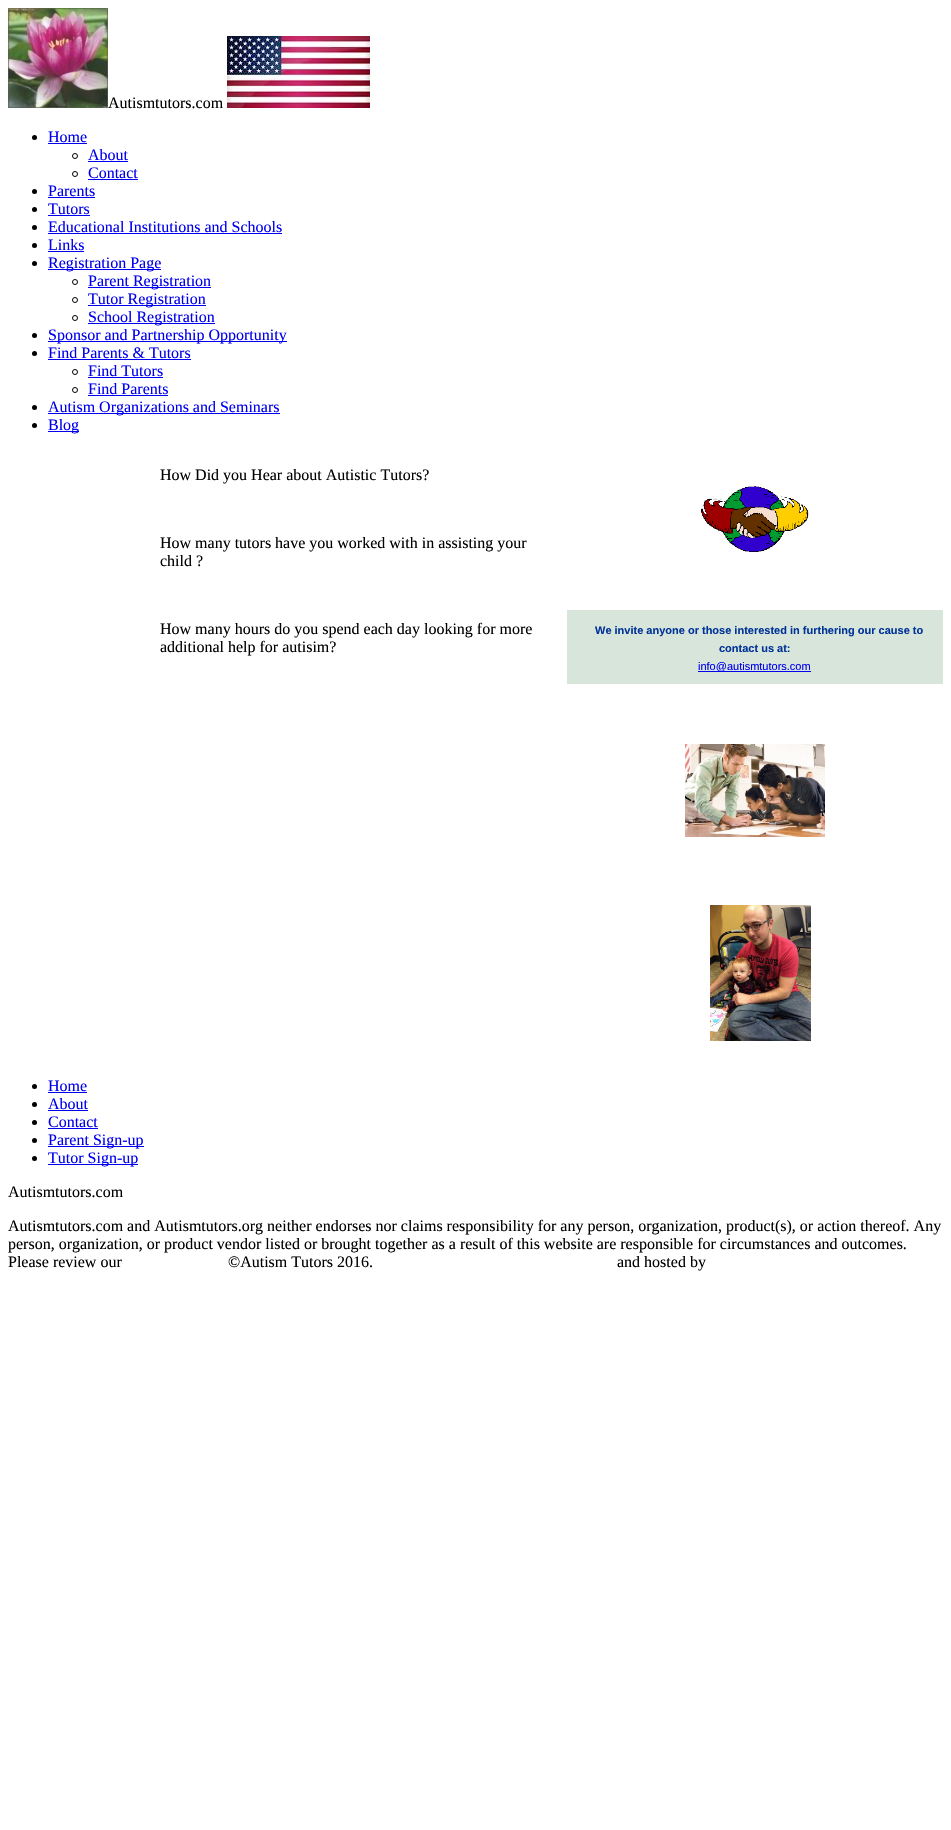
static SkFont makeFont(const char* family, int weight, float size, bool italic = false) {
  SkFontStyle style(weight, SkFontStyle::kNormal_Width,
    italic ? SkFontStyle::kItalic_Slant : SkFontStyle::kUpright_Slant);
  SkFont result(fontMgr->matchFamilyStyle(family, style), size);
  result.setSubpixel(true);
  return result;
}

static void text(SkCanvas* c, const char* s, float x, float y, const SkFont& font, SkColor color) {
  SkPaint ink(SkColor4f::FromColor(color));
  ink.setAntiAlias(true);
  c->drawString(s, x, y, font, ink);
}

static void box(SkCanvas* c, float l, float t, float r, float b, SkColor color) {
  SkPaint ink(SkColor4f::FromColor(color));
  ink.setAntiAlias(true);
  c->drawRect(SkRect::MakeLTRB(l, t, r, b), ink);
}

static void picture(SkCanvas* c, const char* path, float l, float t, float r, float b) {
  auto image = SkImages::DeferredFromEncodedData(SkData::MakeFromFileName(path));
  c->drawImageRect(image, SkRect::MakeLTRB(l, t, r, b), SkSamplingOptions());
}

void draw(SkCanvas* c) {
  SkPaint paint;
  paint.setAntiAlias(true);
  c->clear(0xffffffff);
  picture(c, "img_01.png", 8, 8, 108, 108);
  SkFont face1 = makeFont("Liberation Serif", 400, 16);
  text(c, "Autismtutors.com", 108, 108, face1, 0xff000000);
  picture(c, "img_02.png", 227, 36, 370, 108);
  paint.setColor(0xff000000);
  c->drawCircle(34.5f, 137.5f, 2.5f, paint);
  text(c, "Home", 48, 142, face1, 0xff0000ee);
  box(c, 48, 143, 87, 144, 0xff0000ee);
  paint.setStyle(SkPaint::kStroke_Style);
  paint.setStrokeWidth(1);
  c->drawCircle(75, 156, 2.5f, paint);
  text(c, "About", 88, 160, face1, 0xff0000ee);
  box(c, 88, 161, 128, 162, 0xff0000ee);
  c->drawCircle(75, 174, 2.5f, paint);
  text(c, "Contact", 88, 178, face1, 0xff0000ee);
  box(c, 88, 179, 138, 180, 0xff0000ee);
  paint.setStyle(SkPaint::kFill_Style);
  c->drawCircle(34.5f, 191.5f, 2.5f, paint);
  text(c, "Parents", 48, 196, face1, 0xff0000ee);
  box(c, 48, 197, 95, 198, 0xff0000ee);
  c->drawCircle(34.5f, 209.5f, 2.5f, paint);
  text(c, "Tutors", 48, 214, face1, 0xff0000ee);
  box(c, 48, 215, 90, 216, 0xff0000ee);
  c->drawCircle(34.5f, 227.5f, 2.5f, paint);
  text(c, "Educational Institutions and Schools", 48, 232, face1, 0xff0000ee);
  box(c, 48, 233, 282, 234, 0xff0000ee);
  c->drawCircle(34.5f, 245.5f, 2.5f, paint);
  text(c, "Links", 48, 250, face1, 0xff0000ee);
  box(c, 48, 251, 84, 252, 0xff0000ee);
  c->drawCircle(34.5f, 263.5f, 2.5f, paint);
  box(c, 48, 269, 161, 270, 0xff0000ee);
  text(c, "Registration Page", 48, 268, face1, 0xff0000ee);
  paint.setStyle(SkPaint::kStroke_Style);
  c->drawCircle(75, 282, 2.5f, paint);
  box(c, 88, 287, 211, 288, 0xff0000ee);
  text(c, "Parent Registration", 88, 286, face1, 0xff0000ee);
  c->drawCircle(75, 300, 2.5f, paint);
  box(c, 88, 305, 206, 306, 0xff0000ee);
  text(c, "Tutor Registration", 88, 304, face1, 0xff0000ee);
  c->drawCircle(75, 318, 2.5f, paint);
  box(c, 88, 323, 215, 324, 0xff0000ee);
  text(c, "School Registration", 88, 322, face1, 0xff0000ee);
  paint.setStyle(SkPaint::kFill_Style);
  c->drawCircle(34.5f, 335.5f, 2.5f, paint);
  box(c, 48, 341, 287, 342, 0xff0000ee);
  text(c, "Sponsor and Partnership Opportunity", 48, 340, face1, 0xff0000ee);
  c->drawCircle(34.5f, 353.5f, 2.5f, paint);
  text(c, "Find Parents & Tutors", 48, 358, face1, 0xff0000ee);
  box(c, 48, 359, 191, 360, 0xff0000ee);
  paint.setStyle(SkPaint::kStroke_Style);
  c->drawCircle(75, 372, 2.5f, paint);
  text(c, "Find Tutors", 88, 376, face1, 0xff0000ee);
  box(c, 88, 377, 163, 378, 0xff0000ee);
  c->drawCircle(75, 390, 2.5f, paint);
  text(c, "Find Parents", 88, 394, face1, 0xff0000ee);
  box(c, 88, 395, 168, 396, 0xff0000ee);
  paint.setStyle(SkPaint::kFill_Style);
  c->drawCircle(34.5f, 407.5f, 2.5f, paint);
  box(c, 48, 413, 280, 414, 0xff0000ee);
  text(c, "Autism Organizations and Seminars", 48, 412, face1, 0xff0000ee);
  c->drawCircle(34.5f, 425.5f, 2.5f, paint);
  box(c, 48, 431, 79, 432, 0xff0000ee);
  text(c, "Blog", 48, 430, face1, 0xff0000ee);
  text(c, "How Did you Hear about Autistic Tutors?", 160, 480, face1, 0xff000000);
  text(c, "How many tutors have you worked with in assisting your", 160, 548, face1, 0xff000000);
  text(c, "child ?", 160, 566, face1, 0xff000000);
  text(c, "How many hours do you spend each day looking for more", 160, 634, face1, 0xff000000);
  text(c, "additional help for autisim?", 160, 652, face1, 0xff000000);
  picture(c, "img_03.png", 701, 486, 809, 552);
  box(c, 567, 610, 943, 684, 0xffd8e5da);
  SkFont face2 = makeFont("Liberation Sans", 700, 11);
  text(c, "We invite anyone or those interested in furthering our cause to", 595, 634, face2, 0xff003399);
  text(c, "contact us at:", 719, 652, face2, 0xff003399);
  box(c, 698, 671, 811, 672, 0xff0000ee);
  SkFont face3 = makeFont("Liberation Sans", 400, 11);
  text(c, "info@autismtutors.com", 698, 670, face3, 0xff0000ee);
  picture(c, "img_04.png", 685, 744, 825, 837);
  picture(c, "img_05.png", 710, 905, 811, 1041);
  c->drawCircle(34.5f, 1086.5f, 2.5f, paint);
  text(c, "Home", 48, 1091, face1, 0xff0000ee);
  box(c, 48, 1092, 87, 1093, 0xff0000ee);
  c->drawCircle(34.5f, 1104.5f, 2.5f, paint);
  text(c, "About", 48, 1109, face1, 0xff0000ee);
  box(c, 48, 1110, 88, 1111, 0xff0000ee);
  c->drawCircle(34.5f, 1122.5f, 2.5f, paint);
  text(c, "Contact", 48, 1127, face1, 0xff0000ee);
  box(c, 48, 1128, 98, 1129, 0xff0000ee);
  c->drawCircle(34.5f, 1140.5f, 2.5f, paint);
  box(c, 48, 1146, 144, 1147, 0xff0000ee);
  text(c, "Parent Sign-up", 48, 1145, face1, 0xff0000ee);
  c->drawCircle(34.5f, 1158.5f, 2.5f, paint);
  box(c, 48, 1164, 138, 1165, 0xff0000ee);
  text(c, "Tutor Sign-up", 48, 1163, face1, 0xff0000ee);
  text(c, "Autismtutors.com", 8, 1197, face1, 0xff000000);
  text(c, "Autismtutors.com and Autismtutors.org neither endorses nor claims responsibility for any person, organization, product(s), or action thereof. Any", 8, 1231, face1, 0xff000000);
  text(c, "person, organization, or product vendor listed or brought together as a result of this website are responsible for circumstances and outcomes.", 8, 1249, face1, 0xff000000);
  text(c, "Please review our", 8, 1267, face1, 0xff000000);
  text(c, "©Autism Tutors 2016.", 228, 1267, face1, 0xff000000);
  text(c, "and hosted by", 617, 1267, face1, 0xff000000);
}
